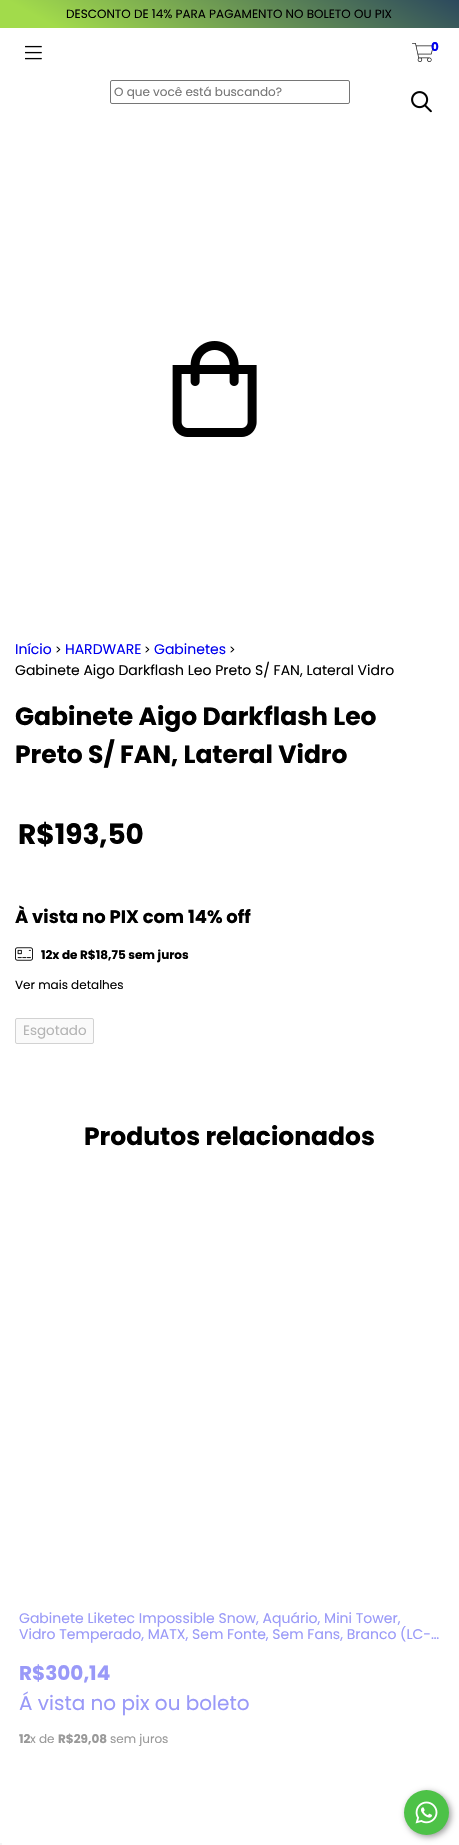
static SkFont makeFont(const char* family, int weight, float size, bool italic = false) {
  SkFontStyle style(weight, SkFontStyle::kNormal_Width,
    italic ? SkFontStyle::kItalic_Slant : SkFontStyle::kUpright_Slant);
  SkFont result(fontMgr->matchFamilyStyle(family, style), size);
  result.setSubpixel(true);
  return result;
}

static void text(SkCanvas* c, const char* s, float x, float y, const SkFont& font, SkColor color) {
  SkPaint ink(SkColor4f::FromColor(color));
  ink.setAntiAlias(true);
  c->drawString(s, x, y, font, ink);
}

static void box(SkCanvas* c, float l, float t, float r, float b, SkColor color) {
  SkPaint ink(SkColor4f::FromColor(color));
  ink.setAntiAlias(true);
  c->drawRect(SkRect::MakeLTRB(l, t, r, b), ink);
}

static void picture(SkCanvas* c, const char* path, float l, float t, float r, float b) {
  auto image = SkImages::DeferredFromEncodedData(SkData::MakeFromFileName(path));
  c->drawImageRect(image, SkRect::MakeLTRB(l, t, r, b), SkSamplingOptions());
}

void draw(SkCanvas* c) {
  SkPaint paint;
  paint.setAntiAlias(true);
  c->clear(0xffffffff);
  {
    const SkColor colors[] = {0xffa2db4b, 0xff1a3360};
    const float stops[] = {0.1f, 1};
    const SkPoint ends[] = {{170, 122}, {305, -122}};
    paint.setShader(SkGradientShader::MakeLinear(ends, colors, stops, 2, SkTileMode::kClamp));
    paint.setAlpha(255);
  }
  c->drawRect(SkRect::MakeLTRB(0, 0, 459, 28), paint);
  SkFont face1 = makeFont("Poppins", 400, 12);
  text(c, "DESCONTO DE 14% PARA PAGAMENTO NO BOLETO OU PIX", 66, 18, face1, 0xff000000);
  picture(c, "img_01.png", 25, 45, 42, 60);
  picture(c, "img_02.png", 412, 43, 434, 62);
  SkFont face2 = makeFont("Poppins", 700, 12);
  text(c, "0", 431, 51, face2, 0xff0000ee);
  paint.setStyle(SkPaint::kStroke_Style);
  paint.setStrokeWidth(1);
  paint.setShader(nullptr);
  paint.setColor(0xff767676);
  c->drawRoundRect(SkRect::MakeLTRB(110.5f, 80.5f, 349.5f, 103.5f), 1.5f, 1.5f, paint);
  text(c, "O que você está buscando?", 114, 96, face1, 0xff757575);
  picture(c, "img_03.png", 411, 91, 432, 113);
  picture(c, "img_04.png", 172, 341, 257, 437);
  SkFont face3 = makeFont("Poppins", 400, 14);
  text(c, "Início", 15, 654, face3, 0xff0000ee);
  text(c, ">", 55, 654, face1, 0xff000000);
  text(c, "HARDWARE", 65, 654, face3, 0xff0000ee);
  text(c, ">", 144, 654, face1, 0xff000000);
  text(c, "Gabinetes", 154, 654, face3, 0xff0000ee);
  text(c, ">", 229, 654, face1, 0xff000000);
  text(c, "Gabinete Aigo Darkflash Leo Preto S/ FAN, Lateral Vidro", 15, 675, face3, 0xff000000);
  SkFont face4 = makeFont("Poppins", 700, 25);
  text(c, "Gabinete Aigo Darkflash Leo", 15, 725, face4, 0xff000000);
  text(c, "Preto S/ FAN, Lateral Vidro", 15, 763, face4, 0xff000000);
  SkFont face5 = makeFont("Poppins", 700, 28);
  text(c, "R$193,50", 18, 844, face5, 0xff000000);
  SkFont face6 = makeFont("Poppins", 700, 18);
  text(c, "À vista no PIX com 14% off", 15, 923, face6, 0xff000000);
  picture(c, "img_05.png", 15, 947, 33, 961);
  text(c, "12x de R$18,75 sem juros", 41, 959, face2, 0xff000000);
  text(c, "Ver mais detalhes", 15, 989, face1, 0xff000000);
  paint.setStyle(SkPaint::kFill_Style);
  paint.setColor(0xfffafafa);
  c->drawRoundRect(SkRect::MakeLTRB(15.5f, 1018.5f, 93.5f, 1043.5f), 1.5f, 1.5f, paint);
  paint.setStyle(SkPaint::kStroke_Style);
  paint.setColor(0xffd2d2d2);
  c->drawRoundRect(SkRect::MakeLTRB(15.5f, 1018.5f, 93.5f, 1043.5f), 1.5f, 1.5f, paint);
  SkFont face7 = makeFont("Poppins", 400, 13.5f);
  text(c, "Esgotado", 23, 1035, face7, 0xffb4b4b4);
  text(c, "Produtos relacionados", 84, 1145, face4, 0xff000000);
  text(c, "Gabinete Liketec Impossible Snow, Aquário, Mini Tower,", 19, 1623, face3, 0xff9999f8);
  text(c, "Vidro Temperado, MATX, Sem Fonte, Sem Fans, Branco (LC-…", 19, 1639, face3, 0xff9999f8);
  SkFont face8 = makeFont("Poppins", 700, 20);
  text(c, "R$300,14", 19, 1680, face8, 0xff9999f8);
  SkFont face9 = makeFont("Poppins", 400, 20);
  text(c, "Á vista no pix ou boleto", 19, 1710, face9, 0xff9999f8);
  text(c, "12", 19, 1743, face2, 0xff999999);
  text(c, "x de", 30, 1743, face1, 0xff999999);
  text(c, "R$29,08", 58, 1743, face2, 0xff999999);
  text(c, "sem juros", 110, 1743, face1, 0xff999999);
  box(c, 0, 1843, 2, 1845, 0xfff5f5f5);
  paint.setStyle(SkPaint::kFill_Style);
  paint.setColor(0x66000000);
  paint.setMaskFilter(SkMaskFilter::MakeBlur(kNormal_SkBlurStyle, 3));
  c->drawRoundRect(SkRect::MakeLTRB(406, 1792, 451, 1837), 22.5f, 22.5f, paint);
  paint.setMaskFilter(nullptr);
  paint.setColor(0xff4dc247);
  c->drawCircle(426.5f, 1812.5f, 22.5f, paint);
  picture(c, "img_06.png", 415, 1801, 438, 1824);
}
